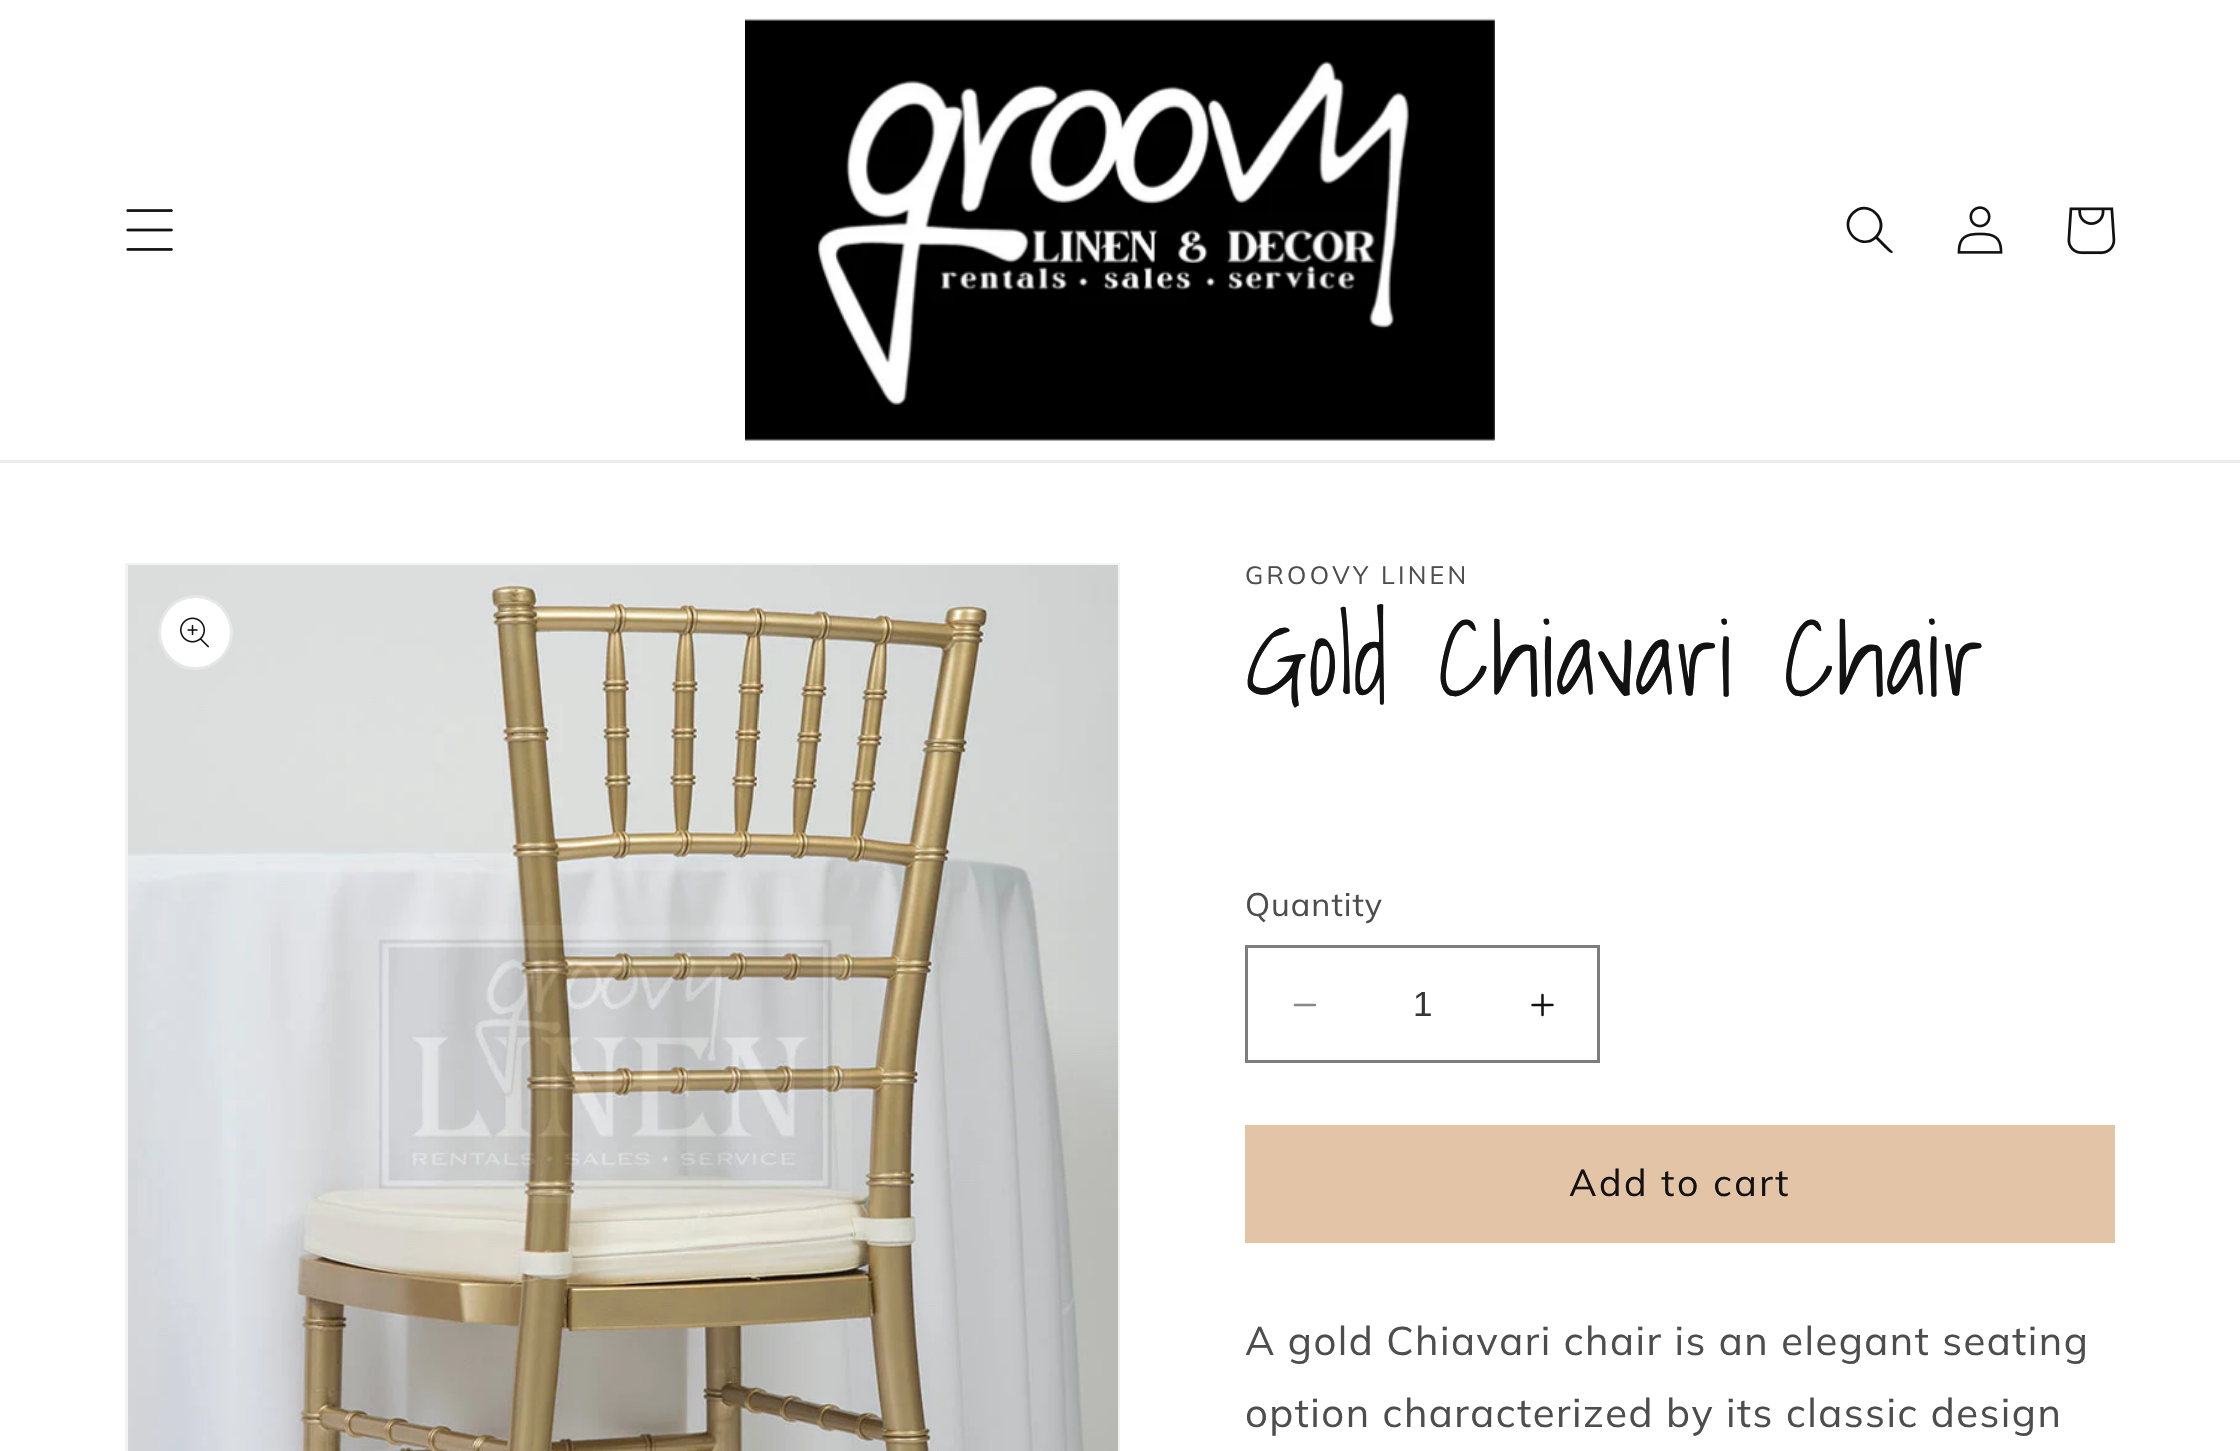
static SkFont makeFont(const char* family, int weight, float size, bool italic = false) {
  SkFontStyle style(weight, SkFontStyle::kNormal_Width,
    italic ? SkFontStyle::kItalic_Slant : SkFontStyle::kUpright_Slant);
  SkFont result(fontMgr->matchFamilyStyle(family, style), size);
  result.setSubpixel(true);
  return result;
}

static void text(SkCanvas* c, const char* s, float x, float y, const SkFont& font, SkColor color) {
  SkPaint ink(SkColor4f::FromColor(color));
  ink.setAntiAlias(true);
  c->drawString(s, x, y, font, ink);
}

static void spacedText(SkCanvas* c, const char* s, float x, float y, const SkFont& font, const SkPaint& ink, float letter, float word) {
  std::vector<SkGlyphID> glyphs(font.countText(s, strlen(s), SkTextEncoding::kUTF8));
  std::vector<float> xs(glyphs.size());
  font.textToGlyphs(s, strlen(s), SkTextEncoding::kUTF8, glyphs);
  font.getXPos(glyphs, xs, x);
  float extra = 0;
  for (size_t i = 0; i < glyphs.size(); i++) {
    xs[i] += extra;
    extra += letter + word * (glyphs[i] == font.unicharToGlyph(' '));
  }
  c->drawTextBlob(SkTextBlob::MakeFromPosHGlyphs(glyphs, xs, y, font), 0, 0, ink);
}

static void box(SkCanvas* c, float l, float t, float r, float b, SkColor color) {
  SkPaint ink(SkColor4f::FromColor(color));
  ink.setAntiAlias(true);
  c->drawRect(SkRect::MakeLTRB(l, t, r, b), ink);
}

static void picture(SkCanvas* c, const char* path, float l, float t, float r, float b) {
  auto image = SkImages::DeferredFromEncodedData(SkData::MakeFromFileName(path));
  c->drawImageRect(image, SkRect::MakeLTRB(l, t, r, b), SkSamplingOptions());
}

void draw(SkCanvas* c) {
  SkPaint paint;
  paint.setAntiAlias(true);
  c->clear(0xffffffff);
  box(c, 0, 460, 2240, 463, 0xffececec);
  picture(c, "img_01.png", 126, 209, 173, 251);
  picture(c, "img_02.png", 745, 18, 1495, 441);
  paint.setColor(0xff121212);
  c->drawPath(SkPathBuilder(SkPathFillType::kEvenOdd).moveTo(1875, 236).cubicTo(1861, 250, 1840, 228, 1854, 214).cubicTo(1868, 200, 1889, 222, 1875, 236).close().moveTo(1876, 239).cubicTo(1859, 253, 1836, 228, 1852, 212).cubicTo(1868, 196, 1893, 220, 1878, 237).lineTo(1893, 252).lineTo(1892, 253).cubicTo(1890, 254, 1878, 241, 1876, 239).close().detach(), paint);
  picture(c, "img_03.png", 1957, 206, 2003, 254);
  picture(c, "img_04.png", 2067, 207, 2116, 255);
  paint.setStyle(SkPaint::kStroke_Style);
  paint.setStrokeWidth(3);
  paint.setColor(0xfff3f3f3);
  c->drawRect(SkRect::MakeLTRB(126.5f, 564.5f, 1118.5f, 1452.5f), paint);
  picture(c, "img_05.png", 128, 565, 1118, 1451);
  paint.setStyle(SkPaint::kFill_Style);
  paint.setColor(0xffffffff);
  c->drawCircle(195.5f, 632.5f, 37.5f, paint);
  paint.setStyle(SkPaint::kStroke_Style);
  paint.setColor(0x1a121212);
  c->drawCircle(195.5f, 632.5f, 36, paint);
  picture(c, "img_06.png", 180, 617, 209, 648);
  SkFont face1 = makeFont("Muli", 400, 25);
  paint.setStyle(SkPaint::kFill_Style);
  paint.setColor(0xff4d4d4d);
  spacedText(c, "GROOVY LINEN", 1245, 584, face1, paint, 3.25f, 0);
  SkFont face2 = makeFont("Shadows Into Light", 400, 105);
  paint.setColor(0xff121212);
  spacedText(c, "Gold Chiavari Chair", 1245, 696, face2, paint, 1.6f, 0);
  SkFont face3 = makeFont("Muli", 400, 32.5f);
  paint.setColor(0xff4d4d4d);
  spacedText(c, "Quantity", 1245, 916, face3, paint, 1, 0);
  picture(c, "img_07.png", 1293, 1003, 1317, 1007);
  picture(c, "img_08.png", 1531, 993, 1554, 1017);
  paint.setStyle(SkPaint::kStroke_Style);
  paint.setColor(0xff7d7d7d);
  c->drawRect(SkRect::MakeLTRB(1246.5f, 946.5f, 1598.5f, 1061.5f), paint);
  SkFont face4 = makeFont("Liberation Sans", 400, 35);
  text(c, "1", 1413, 1016, face4, 0xff363636);
  box(c, 1245, 1125, 2115, 1243, 0xffe4c4a6);
  SkFont face5 = makeFont("Muli", 400, 37.5f);
  paint.setStyle(SkPaint::kFill_Style);
  paint.setColor(0xff121212);
  spacedText(c, "Add to cart", 1569, 1196, face5, paint, 2.5f, 0);
  SkFont face6 = makeFont("Muli", 400, 40);
  paint.setColor(0xff4d4d4d);
  spacedText(c, "A gold Chiavari chair is an elegant seating", 1245, 1355, face6, paint, 1.5f, 0);
  spacedText(c, "option characterized by its classic design", 1245, 1427, face6, paint, 1.5f, 0);
}
